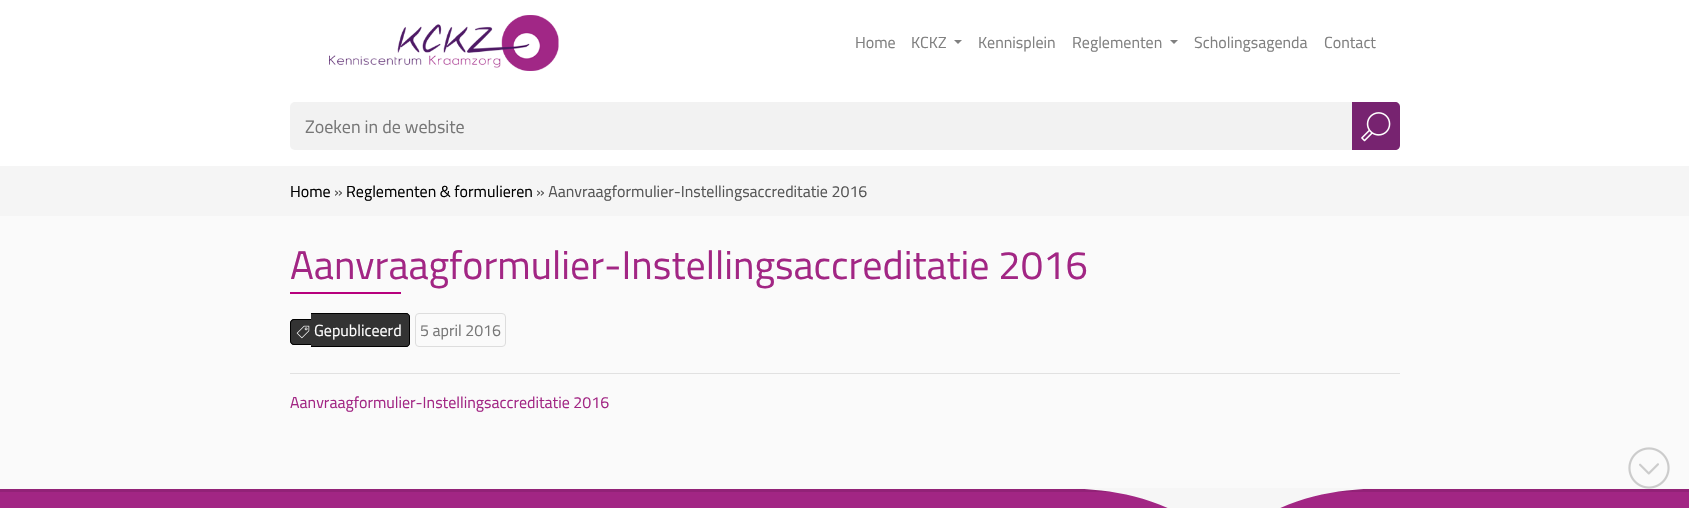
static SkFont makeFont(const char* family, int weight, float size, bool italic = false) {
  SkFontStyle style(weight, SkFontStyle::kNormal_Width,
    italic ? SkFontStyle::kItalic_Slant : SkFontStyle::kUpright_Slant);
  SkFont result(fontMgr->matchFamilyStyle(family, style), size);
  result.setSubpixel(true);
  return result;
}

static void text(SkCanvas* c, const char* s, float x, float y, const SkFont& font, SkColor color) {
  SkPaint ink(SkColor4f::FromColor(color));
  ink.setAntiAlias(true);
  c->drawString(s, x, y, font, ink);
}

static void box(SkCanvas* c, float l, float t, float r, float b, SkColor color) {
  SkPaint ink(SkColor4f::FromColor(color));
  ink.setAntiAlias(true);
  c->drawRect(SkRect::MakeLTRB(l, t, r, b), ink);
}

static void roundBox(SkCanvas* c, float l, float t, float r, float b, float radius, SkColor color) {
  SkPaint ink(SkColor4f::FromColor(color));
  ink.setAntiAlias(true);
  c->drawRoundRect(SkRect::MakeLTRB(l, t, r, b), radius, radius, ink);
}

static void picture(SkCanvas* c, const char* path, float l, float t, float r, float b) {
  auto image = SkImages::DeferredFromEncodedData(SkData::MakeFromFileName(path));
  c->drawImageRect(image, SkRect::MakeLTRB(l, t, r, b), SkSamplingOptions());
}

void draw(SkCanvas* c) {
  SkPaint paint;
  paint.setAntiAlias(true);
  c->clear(0xffffffff);
  picture(c, "img_01.png", 329, 15, 559, 71);
  SkFont face1 = makeFont("Titillium Web", 400, 16);
  text(c, "Home", 855, 48, face1, 0xff808080);
  text(c, "KCKZ", 911, 48, face1, 0xff808080);
  paint.setColor(0xff808080);
  c->drawPath(SkPathBuilder().moveTo(954, 40).lineTo(962, 40).lineTo(958, 44).close().detach(), paint);
  text(c, "Kennisplein", 978, 48, face1, 0xff808080);
  text(c, "Reglementen", 1072, 48, face1, 0xff808080);
  c->drawPath(SkPathBuilder().moveTo(1170, 40).lineTo(1178, 40).lineTo(1174, 44).close().detach(), paint);
  text(c, "Scholingsagenda", 1194, 48, face1, 0xff808080);
  text(c, "Contact", 1324, 48, face1, 0xff808080);
  roundBox(c, 290, 102, 1400, 150, 5, 0xfff2f2f2);
  SkFont face2 = makeFont("Titillium Web", 400, 18);
  text(c, "Zoeken in de website", 305, 133, face2, 0xff777777);
  paint.setColor(0xff772370);
  c->drawPath(SkPathBuilder().moveTo(1352, 102).lineTo(1395, 102).cubicTo(1398, 102, 1400, 104, 1400, 107).lineTo(1400, 145).cubicTo(1400, 148, 1398, 150, 1395, 150).lineTo(1352, 150).close().detach(), paint);
  picture(c, "img_02.png", 1361, 112, 1391, 142);
  box(c, 0, 216, 1689, 489, 0xfffafafa);
  box(c, 0, 166, 1689, 216, 0xfff5f5f5);
  text(c, "Home", 290, 197, face1, 0xff000000);
  text(c, "»", 334, 197, face1, 0xff555555);
  text(c, "Reglementen & formulieren", 346, 197, face1, 0xff000000);
  text(c, "» Aanvraagformulier-Instellingsaccreditatie 2016", 536, 197, face1, 0xff555555);
  SkFont face3 = makeFont("Titillium Web", 400, 40);
  text(c, "Aanvraagformulier-Instellingsaccreditatie 2016", 290, 279, face3, 0xffa22684);
  box(c, 290, 292, 401, 294, 0xffb7007d);
  paint.setColor(0xff333333);
  c->drawPath(SkPathBuilder().moveTo(294, 319).lineTo(311, 319).lineTo(311, 345).lineTo(294, 345).cubicTo(292, 345, 290, 343, 290, 341).lineTo(290, 323).cubicTo(290, 321, 292, 319, 294, 319).close().detach(), paint);
  paint.setColor(0xff000000);
  c->drawPath(SkPathBuilder(SkPathFillType::kEvenOdd).moveTo(294, 319).lineTo(311, 319).lineTo(311, 345).lineTo(294, 345).cubicTo(292, 345, 290, 343, 290, 341).lineTo(290, 323).cubicTo(290, 321, 292, 319, 294, 319).close().moveTo(294, 320).lineTo(311, 320).lineTo(311, 344).lineTo(294, 344).cubicTo(292.5f, 344, 291, 342.5f, 291, 341).lineTo(291, 323).cubicTo(291, 321.5f, 292.5f, 320, 294, 320).close().detach(), paint);
  picture(c, "img_03.png", 296, 325, 310, 339);
  paint.setColor(0xff333333);
  c->drawPath(SkPathBuilder().moveTo(311, 313).lineTo(406, 313).cubicTo(408, 313, 410, 315, 410, 317).lineTo(410, 343).cubicTo(410, 345, 408, 347, 406, 347).lineTo(311, 347).close().detach(), paint);
  paint.setColor(0xff000000);
  c->drawPath(SkPathBuilder(SkPathFillType::kEvenOdd).moveTo(311, 313).lineTo(406, 313).cubicTo(408, 313, 410, 315, 410, 317).lineTo(410, 343).cubicTo(410, 345, 408, 347, 406, 347).lineTo(311, 347).close().moveTo(311, 314).lineTo(406, 314).cubicTo(408, 314, 409, 315, 409, 317).lineTo(409, 343).cubicTo(409, 345, 408, 346, 406, 346).lineTo(311, 346).close().detach(), paint);
  text(c, "Gepubliceerd", 314, 336, face1, 0xffffffff);
  paint.setStyle(SkPaint::kStroke_Style);
  paint.setStrokeWidth(1);
  paint.setColor(0xffdddddd);
  c->drawRoundRect(SkRect::MakeLTRB(415.5f, 313.5f, 505.5f, 346.5f), 3.5f, 3.5f, paint);
  text(c, "5 april 2016", 420, 336, face1, 0xff777777);
  box(c, 290, 373, 1400, 374, 0xffe1e1e1);
  text(c, "Aanvraagformulier-Instellingsaccreditatie 2016", 290, 408, face1, 0xffa22684);
  box(c, 0, 492, 1689, 508, 0xffa22684);
  box(c, 0, 489, 1689, 492, 0xff922277);
  picture(c, "img_04.png", 1628, 447, 1670, 489);
  paint.setStyle(SkPaint::kFill_Style);
  paint.setColor(0xfff6f6f6);
  c->drawPath(SkPathBuilder().moveTo(1414, 488).cubicTo(1366, 488, 1319, 488, 1272, 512).cubicTo(1224, 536, 1224, 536, 1176, 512).cubicTo(1129, 488, 1082, 488, 1034, 488).close().detach(), paint);
}
